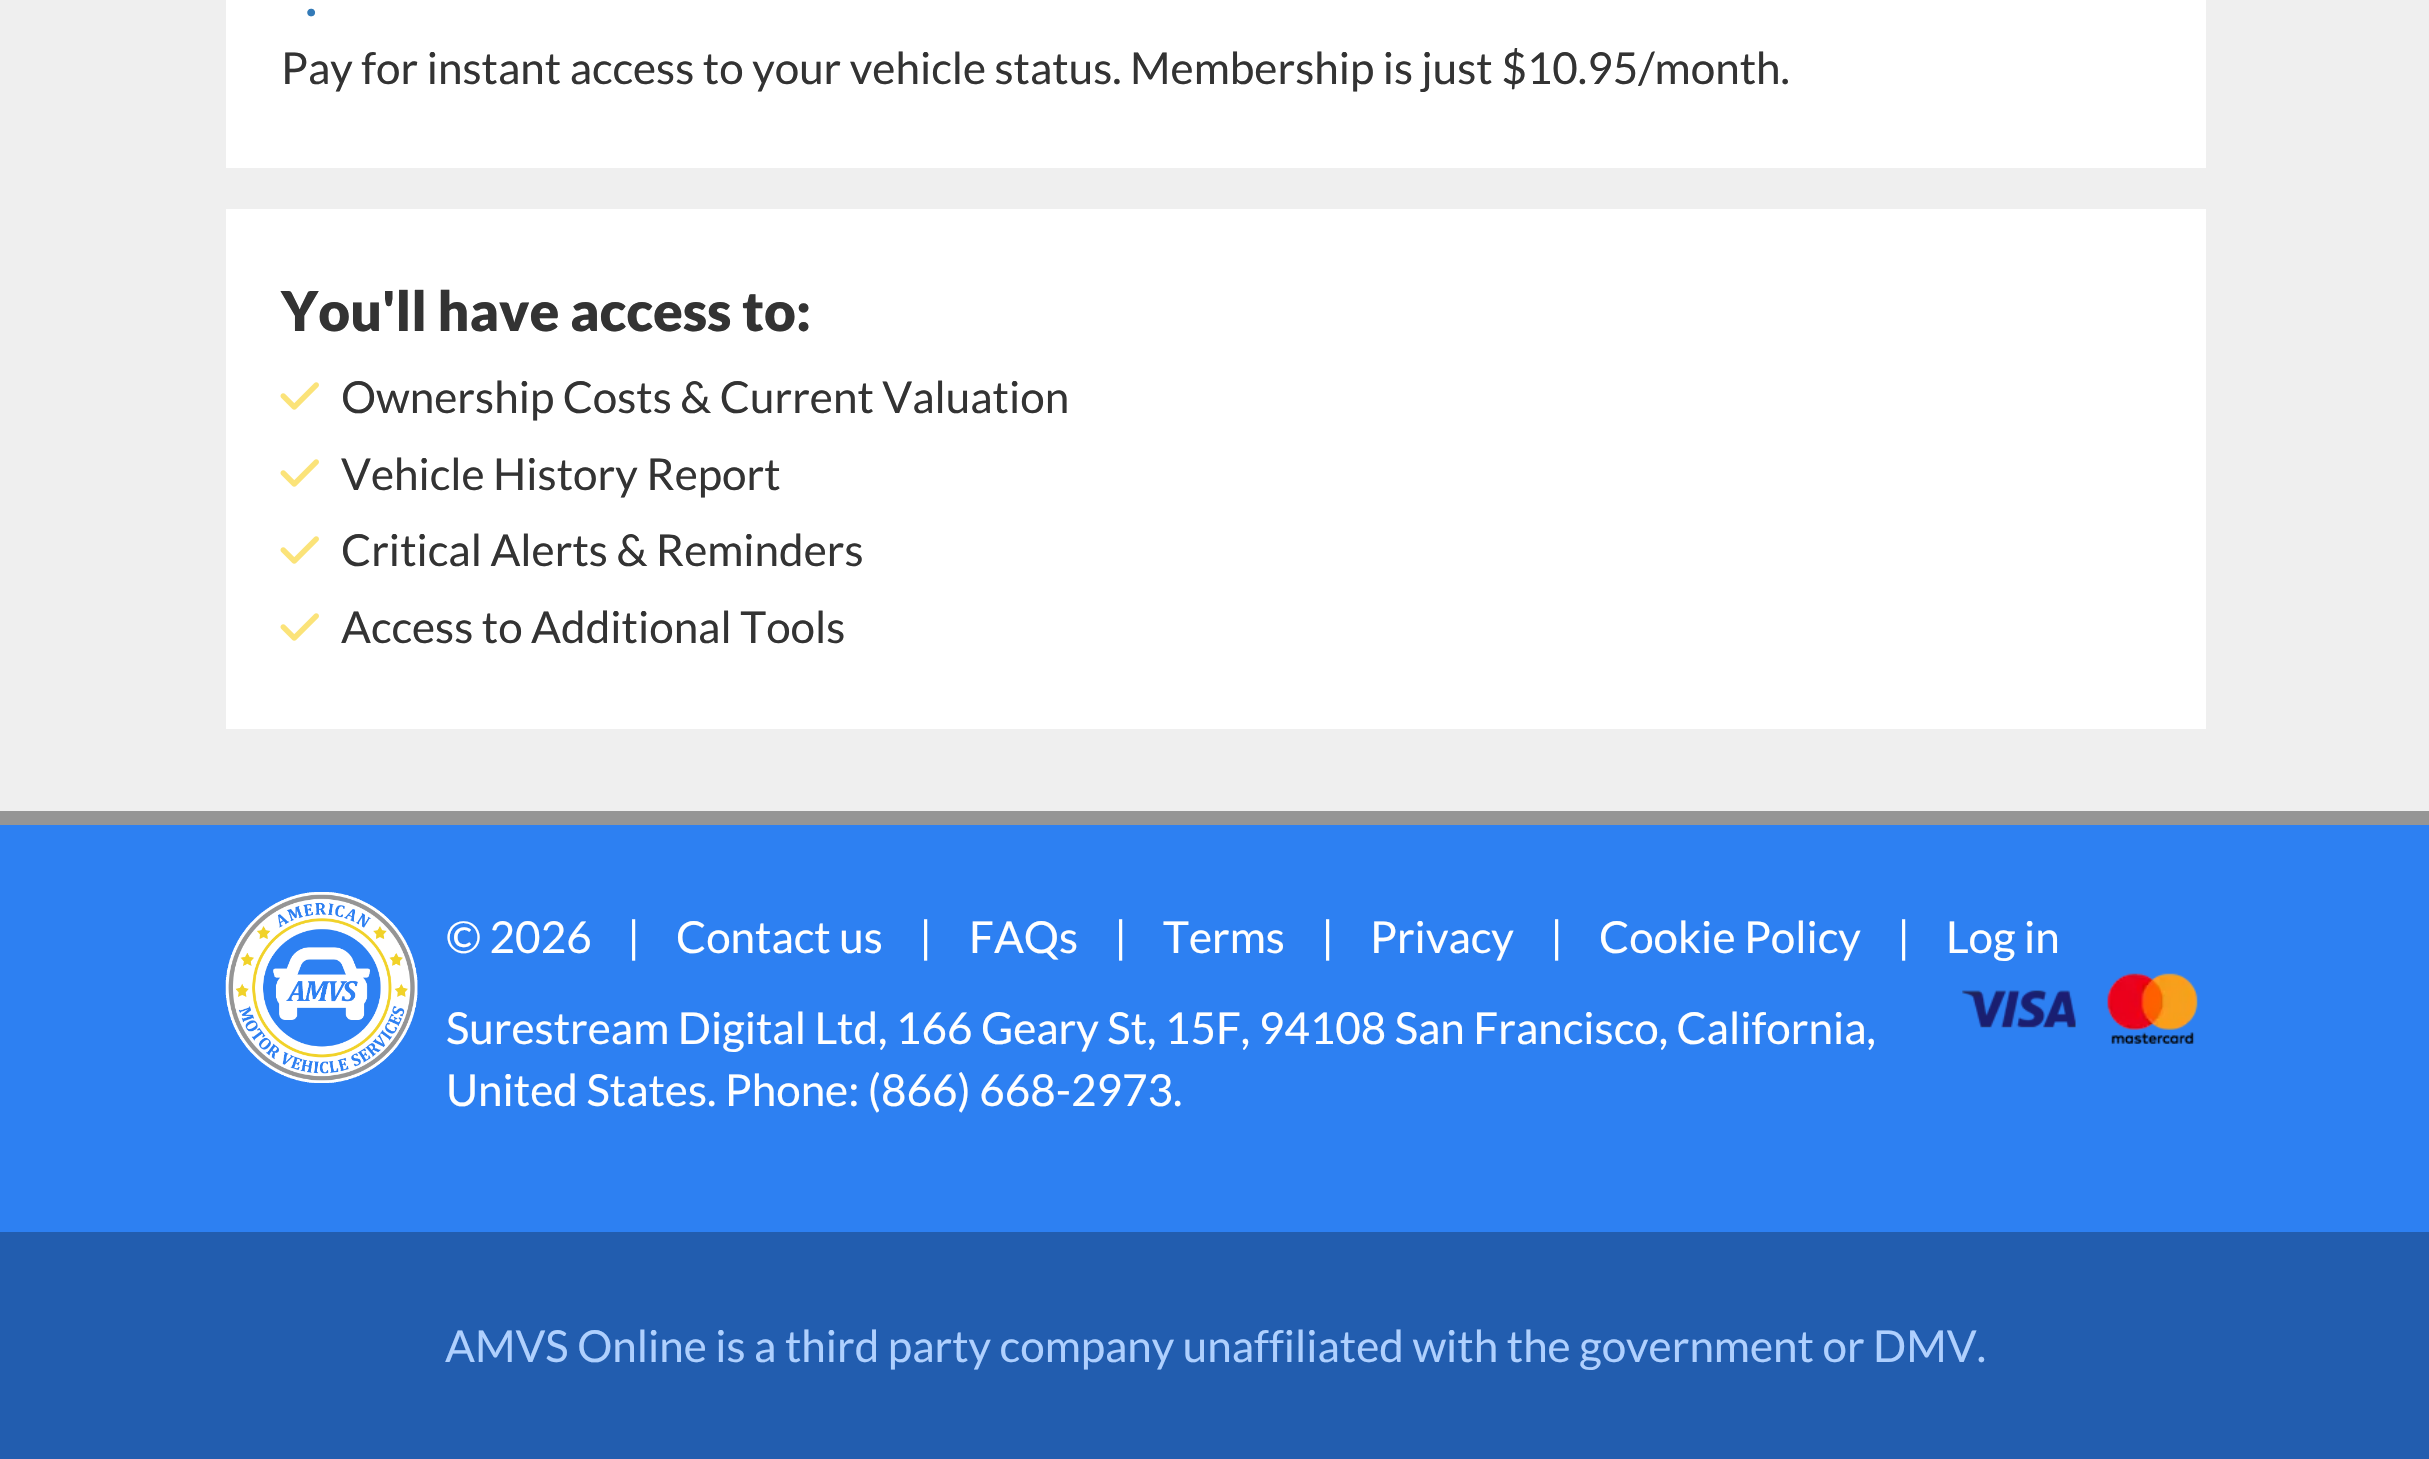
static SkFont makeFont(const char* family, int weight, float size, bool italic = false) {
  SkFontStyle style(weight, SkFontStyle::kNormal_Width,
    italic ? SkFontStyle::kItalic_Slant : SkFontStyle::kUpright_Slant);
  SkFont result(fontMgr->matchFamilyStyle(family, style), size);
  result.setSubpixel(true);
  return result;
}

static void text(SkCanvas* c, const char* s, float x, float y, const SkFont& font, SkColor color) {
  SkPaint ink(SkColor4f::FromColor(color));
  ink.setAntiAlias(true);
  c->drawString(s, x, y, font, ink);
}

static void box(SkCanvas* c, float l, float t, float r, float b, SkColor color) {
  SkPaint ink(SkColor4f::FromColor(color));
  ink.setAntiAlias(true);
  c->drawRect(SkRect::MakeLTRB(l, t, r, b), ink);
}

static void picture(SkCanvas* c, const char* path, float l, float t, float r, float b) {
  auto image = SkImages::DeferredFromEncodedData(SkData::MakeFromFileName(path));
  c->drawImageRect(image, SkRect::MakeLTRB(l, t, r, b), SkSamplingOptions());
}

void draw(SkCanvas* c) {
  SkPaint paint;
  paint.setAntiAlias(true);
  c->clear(0xffefefef);
  box(c, 226, 0, 2206, 168, 0xffffffff);
  SkFont face1 = makeFont("Lato", 900, 44);
  text(c, ".", 306, 16, face1, 0xff337ab7);
  SkFont face2 = makeFont("Lato", 400, 44);
  text(c, "Pay for instant access to your vehicle status. Membership is just $10.95/month.", 281, 84, face2, 0xff333333);
  box(c, 226, 209, 2206, 729, 0xffffffff);
  SkFont face3 = makeFont("Lato", 900, 55);
  text(c, "You'll have access to:", 281, 331, face3, 0xff333333);
  picture(c, "img_01.png", 280, 382, 319, 410);
  text(c, "Ownership Costs & Current Valuation", 341, 413, face2, 0xff333333);
  picture(c, "img_01.png", 280, 459, 319, 487);
  text(c, "Vehicle History Report", 341, 490, face2, 0xff333333);
  picture(c, "img_01.png", 280, 536, 319, 564);
  text(c, "Critical Alerts & Reminders", 341, 566, face2, 0xff333333);
  picture(c, "img_01.png", 280, 613, 319, 641);
  text(c, "Access to Additional Tools", 341, 643, face2, 0xff333333);
  box(c, 0, 825, 2429, 1232, 0xff2d80f2);
  box(c, 0, 811, 2429, 825, 0xff959595);
  picture(c, "img_02.png", 225, 892, 418, 1083);
  text(c, "© 2026", 446, 953, face2, 0xffffffff);
  text(c, "|", 627, 953, face2, 0xffffffff);
  text(c, "Contact us", 676, 953, face2, 0xffffffff);
  text(c, "|", 919, 953, face2, 0xffffffff);
  text(c, "FAQs", 969, 953, face2, 0xffffffff);
  text(c, "|", 1114, 953, face2, 0xffffffff);
  text(c, "Terms", 1163, 953, face2, 0xffffffff);
  text(c, "|", 1321, 953, face2, 0xffffffff);
  text(c, "Privacy", 1370, 953, face2, 0xffffffff);
  text(c, "|", 1550, 953, face2, 0xffffffff);
  text(c, "Cookie Policy", 1599, 953, face2, 0xffffffff);
  text(c, "|", 1897, 953, face2, 0xffffffff);
  text(c, "Log in", 1946, 953, face2, 0xffffffff);
  picture(c, "img_03.png", 1962, 973, 2198, 1044);
  text(c, "Surestream Digital Ltd, 166 Geary St, 15F, 94108 San Francisco, California,", 446, 1044, face2, 0xffffffff);
  text(c, "United States. Phone: (866) 668-2973.", 446, 1106, face2, 0xffffffff);
  box(c, 0, 1232, 2429, 1459, 0xff225daf);
  text(c, "AMVS Online is a third party company unaffiliated with the government or DMV.", 445, 1362, face2, 0xffafd0fe);
}
